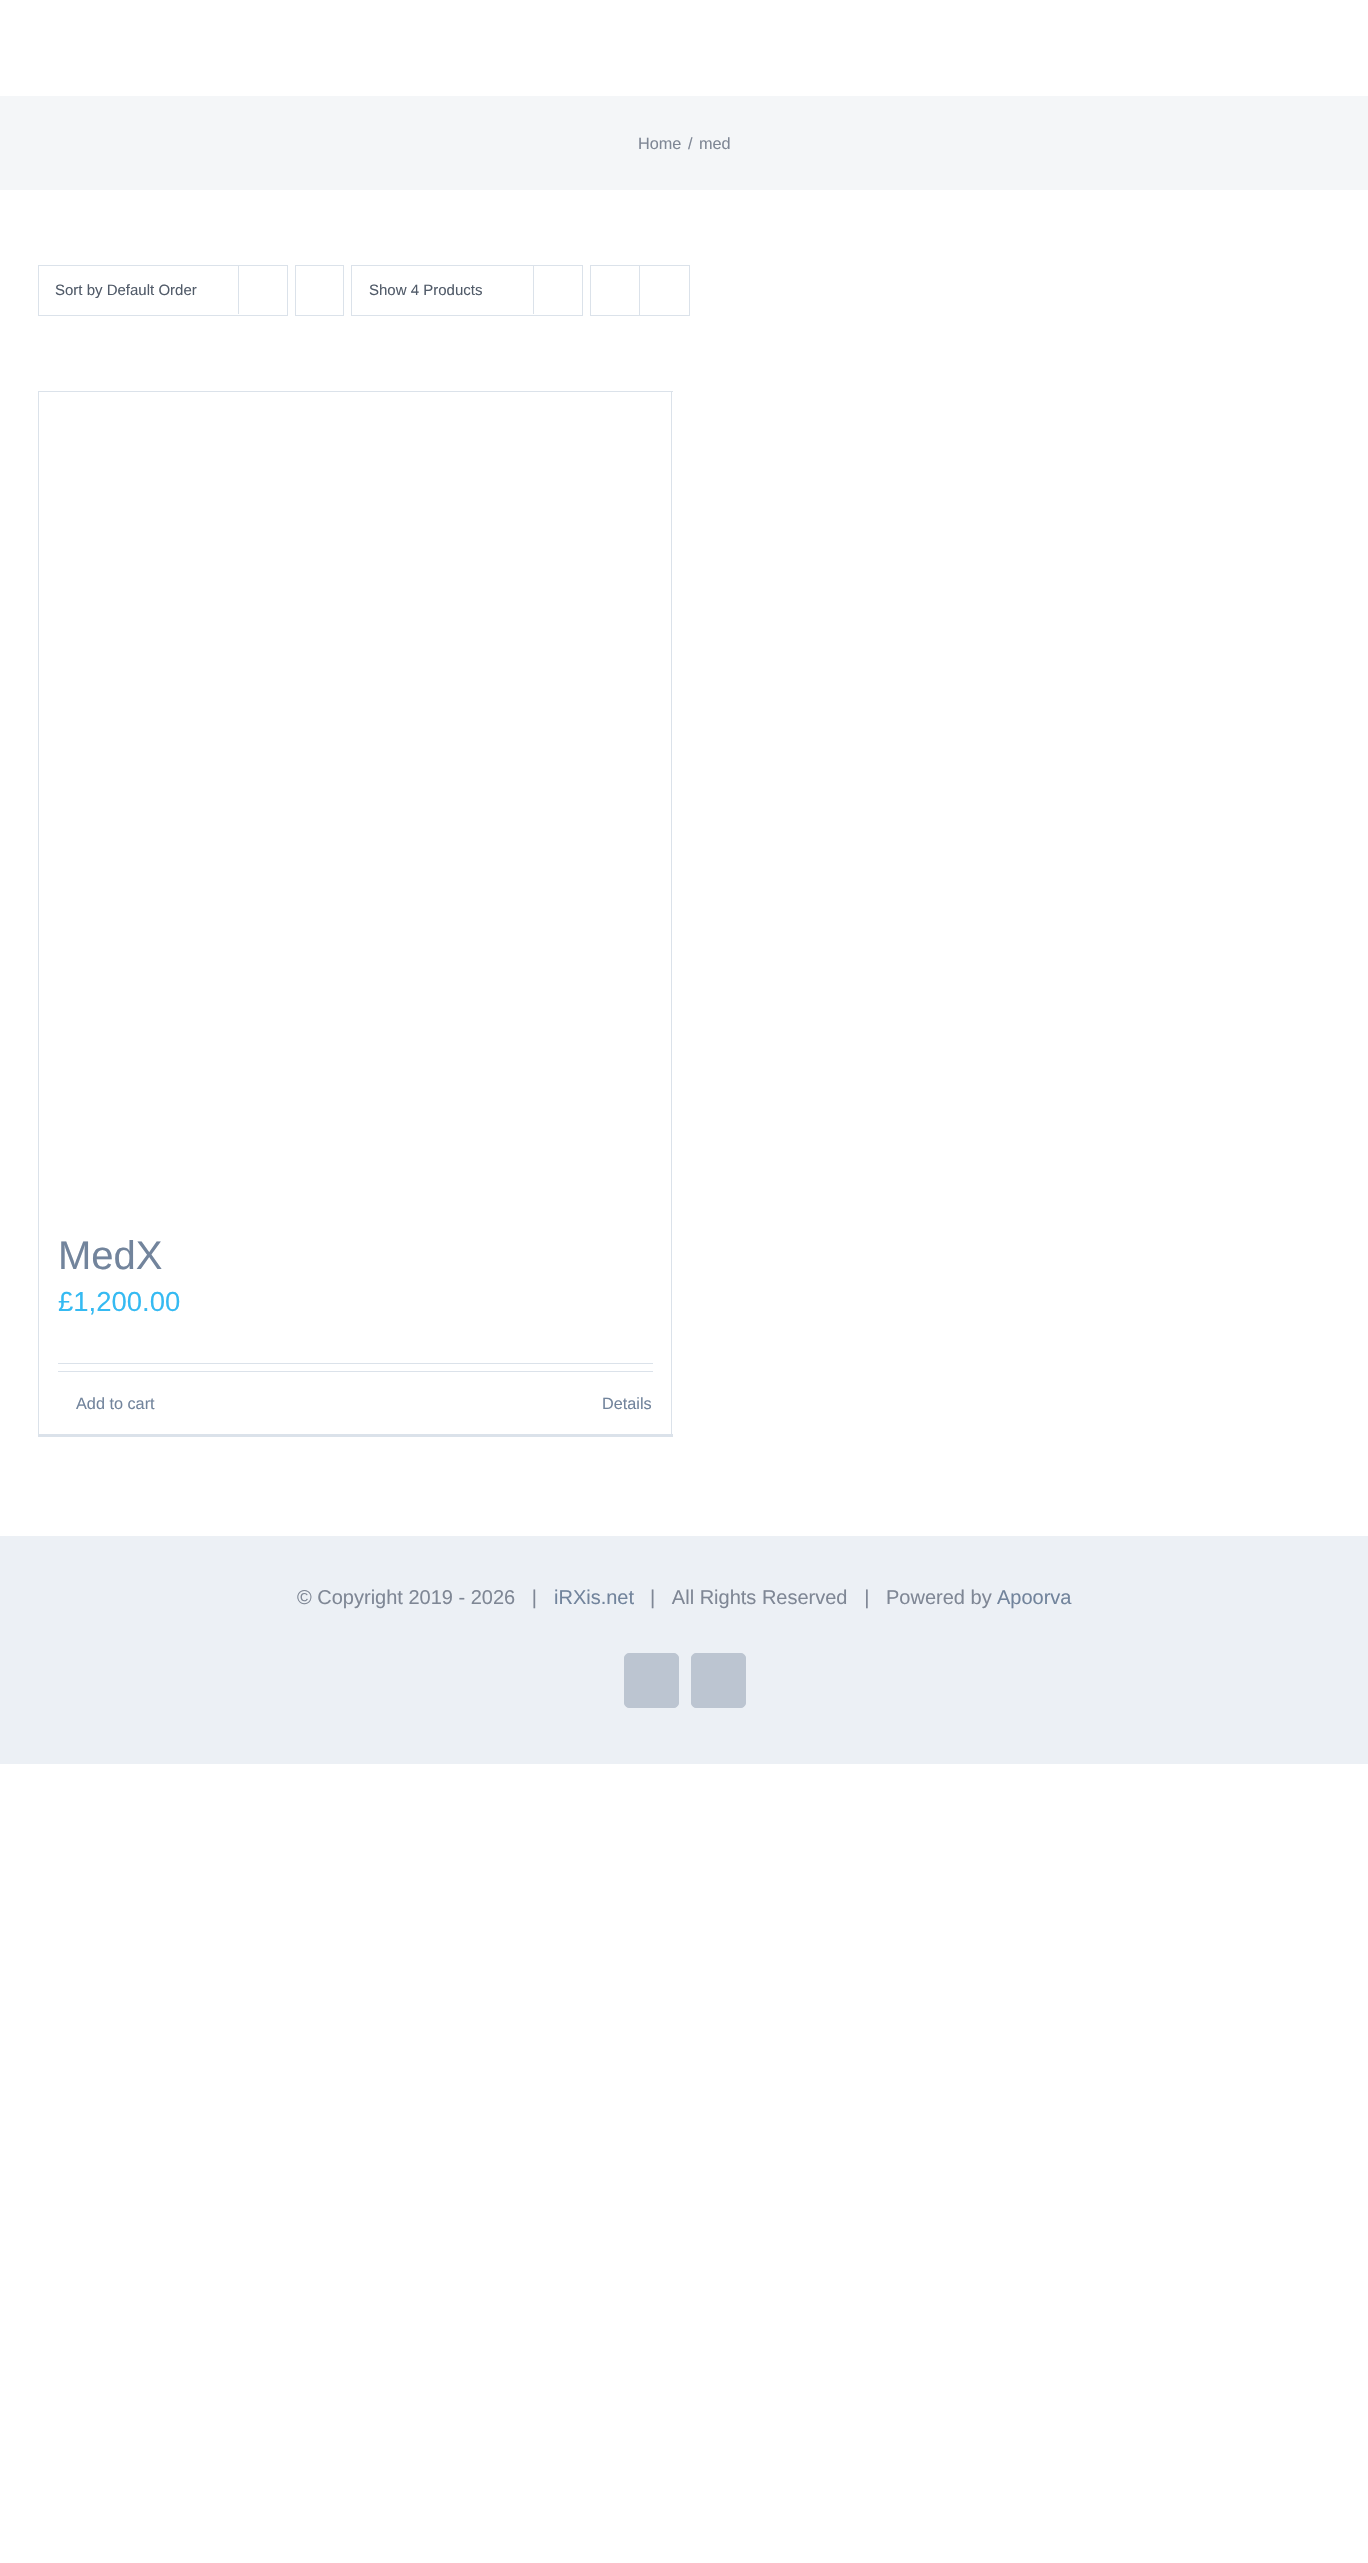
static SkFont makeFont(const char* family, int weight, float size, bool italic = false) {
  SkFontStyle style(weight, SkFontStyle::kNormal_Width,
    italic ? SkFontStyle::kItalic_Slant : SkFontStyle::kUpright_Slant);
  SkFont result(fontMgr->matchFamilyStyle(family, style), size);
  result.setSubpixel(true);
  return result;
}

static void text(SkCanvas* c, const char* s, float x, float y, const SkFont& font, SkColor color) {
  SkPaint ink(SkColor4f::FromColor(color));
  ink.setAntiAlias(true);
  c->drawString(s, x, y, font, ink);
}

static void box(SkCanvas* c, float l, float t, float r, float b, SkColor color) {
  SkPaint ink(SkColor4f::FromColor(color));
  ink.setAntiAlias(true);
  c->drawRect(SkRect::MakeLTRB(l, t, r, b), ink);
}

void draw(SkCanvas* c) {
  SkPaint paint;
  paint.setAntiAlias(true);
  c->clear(0xffffffff);
  box(c, 0, 96, 1368, 190, 0xfff4f6f8);
  SkFont face1 = makeFont("Liberation Sans", 400, 16.25f);
  text(c, "Home", 638, 149, face1, 0xff7f8795);
  text(c, "/", 688, 149, face1, 0xff7f8795);
  text(c, "med", 699, 149, face1, 0xff7f8795);
  paint.setStyle(SkPaint::kStroke_Style);
  paint.setStrokeWidth(1);
  paint.setColor(0xffdbe2ea);
  c->drawRect(SkRect::MakeLTRB(38.5f, 265.5f, 287.5f, 315.5f), paint);
  SkFont face2 = makeFont("Liberation Sans", 400, 15);
  text(c, "Sort by Default Order", 55, 295, face2, 0xff515b69);
  box(c, 238, 265, 239, 314, 0xffdbe2ea);
  c->drawRect(SkRect::MakeLTRB(295.5f, 265.5f, 343.5f, 315.5f), paint);
  c->drawRect(SkRect::MakeLTRB(351.5f, 265.5f, 582.5f, 315.5f), paint);
  text(c, "Show 4 Products", 369, 295, face2, 0xff515b69);
  box(c, 533, 265, 534, 314, 0xffdbe2ea);
  c->drawRect(SkRect::MakeLTRB(590.5f, 265.5f, 689.5f, 315.5f), paint);
  box(c, 639, 266, 640, 315, 0xffdbe2ea);
  box(c, 38, 391, 673, 392, 0xffdbe2ea);
  box(c, 671, 391, 672, 1436, 0xffdbe2ea);
  box(c, 38, 1434, 673, 1437, 0xffdbe2ea);
  box(c, 38, 391, 39, 1436, 0xffdbe2ea);
  SkFont face3 = makeFont("Liberation Sans", 400, 40);
  text(c, "MedX", 58, 1269, face3, 0xff72849c);
  SkFont face4 = makeFont("Liberation Sans", 400, 27.5f);
  text(c, "£1,200.00", 58, 1311, face4, 0xff35baf2);
  box(c, 58, 1363, 653, 1364, 0xffdbe2ea);
  box(c, 58, 1371, 653, 1372, 0xffdbe2ea);
  text(c, "Add to cart", 76, 1409, face1, 0xff72849c);
  text(c, "Details", 602, 1409, face1, 0xff72849c);
  box(c, 0, 1536, 1368, 1764, 0xffecf0f5);
  SkFont face5 = makeFont("Liberation Sans", 400, 20);
  text(c, "© Copyright 2019 - 2026   |", 297, 1604, face5, 0xff7f8795);
  text(c, "iRXis.net", 554, 1604, face5, 0xff72849c);
  text(c, "|   All Rights Reserved   |   Powered by", 650, 1604, face5, 0xff7f8795);
  text(c, "Apoorva", 997, 1604, face5, 0xff72849c);
  paint.setStyle(SkPaint::kFill_Style);
  paint.setColor(0xffbcc5d1);
  c->drawRoundRect(SkRect::MakeLTRB(624.5f, 1653.5f, 678.5f, 1707.5f), 4.5f, 4.5f, paint);
  paint.setStyle(SkPaint::kStroke_Style);
  c->drawRoundRect(SkRect::MakeLTRB(624.5f, 1653.5f, 678.5f, 1707.5f), 4.5f, 4.5f, paint);
  paint.setStyle(SkPaint::kFill_Style);
  c->drawRoundRect(SkRect::MakeLTRB(691.5f, 1653.5f, 745.5f, 1707.5f), 4.5f, 4.5f, paint);
  paint.setStyle(SkPaint::kStroke_Style);
  c->drawRoundRect(SkRect::MakeLTRB(691.5f, 1653.5f, 745.5f, 1707.5f), 4.5f, 4.5f, paint);
}
